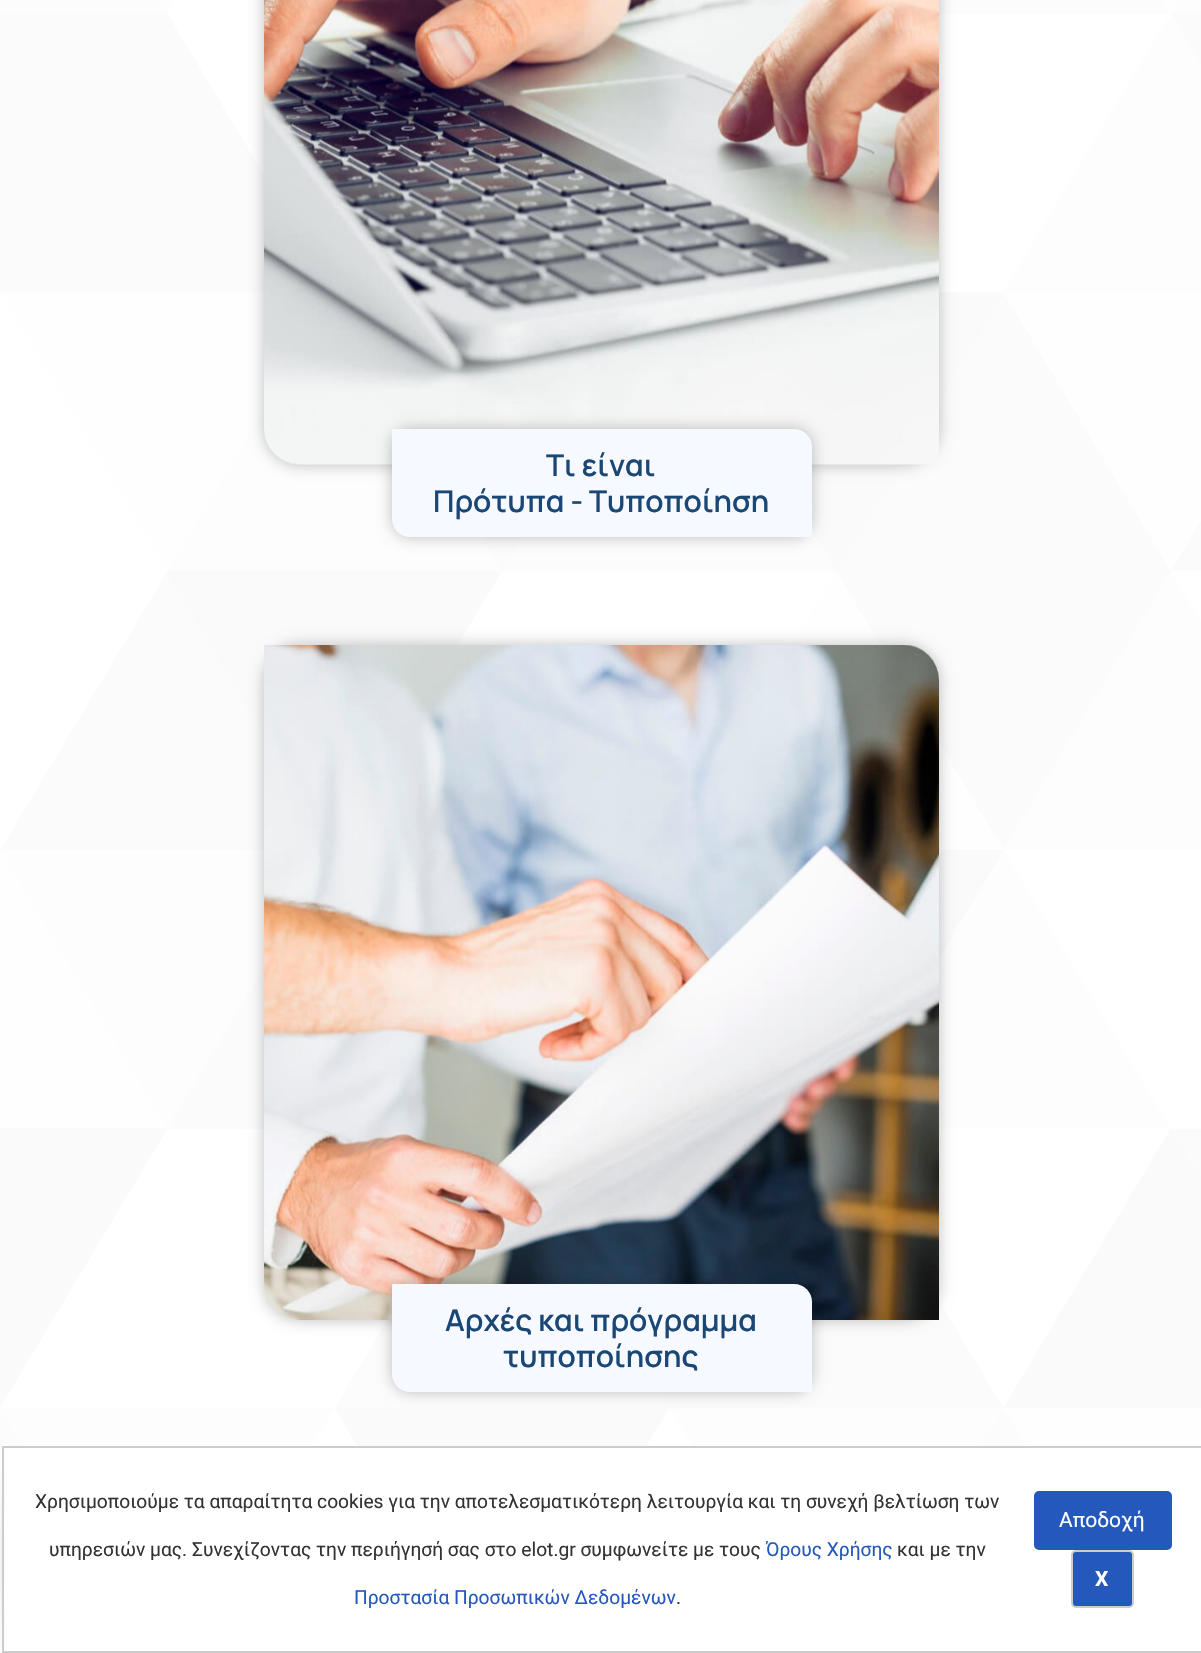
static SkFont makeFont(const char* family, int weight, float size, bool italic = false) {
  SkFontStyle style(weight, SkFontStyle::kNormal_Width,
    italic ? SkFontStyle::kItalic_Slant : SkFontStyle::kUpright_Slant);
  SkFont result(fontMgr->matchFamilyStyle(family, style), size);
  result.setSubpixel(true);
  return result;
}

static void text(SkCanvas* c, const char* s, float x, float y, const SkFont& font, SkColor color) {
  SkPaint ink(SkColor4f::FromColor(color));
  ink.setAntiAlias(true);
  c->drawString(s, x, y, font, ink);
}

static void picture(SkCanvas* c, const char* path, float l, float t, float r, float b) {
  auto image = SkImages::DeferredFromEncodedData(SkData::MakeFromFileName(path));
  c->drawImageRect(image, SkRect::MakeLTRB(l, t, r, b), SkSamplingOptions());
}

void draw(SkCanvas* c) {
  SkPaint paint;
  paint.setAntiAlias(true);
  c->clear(0xffffffff);
  picture(c, "img_01.png", 0, 0, 1201, 1653);
  paint.setColor(0x40000000);
  paint.setMaskFilter(SkMaskFilter::MakeBlur(kNormal_SkBlurStyle, 7.5f));
  c->drawRoundRect(SkRect::MakeLTRB(264, -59, 939, 465), 36, 36, paint);
  paint.setMaskFilter(nullptr);
  picture(c, "img_02.png", 264, 0, 939, 465);
  paint.setMaskFilter(SkMaskFilter::MakeBlur(kNormal_SkBlurStyle, 7.5f));
  c->drawRoundRect(SkRect::MakeLTRB(392, 429, 812, 537), 18, 18, paint);
  paint.setMaskFilter(nullptr);
  paint.setColor(0xfff6f9ff);
  c->drawPath(SkPathBuilder().moveTo(392, 429).lineTo(794, 429).cubicTo(804, 429, 812, 437, 812, 447).lineTo(812, 537).lineTo(410, 537).cubicTo(400, 537, 392, 529, 392, 519).close().detach(), paint);
  SkFont face1 = makeFont("Manrope", 600, 30);
  text(c, "Τι είναι", 546, 476, face1, 0xff1b4775);
  text(c, "Πρότυπα - Τυποποίηση", 433, 512, face1, 0xff1b4775);
  paint.setColor(0x40000000);
  paint.setMaskFilter(SkMaskFilter::MakeBlur(kNormal_SkBlurStyle, 7.5f));
  c->drawRoundRect(SkRect::MakeLTRB(264, 645, 939, 1320), 36, 36, paint);
  paint.setMaskFilter(nullptr);
  picture(c, "img_03.png", 264, 645, 939, 1320);
  paint.setMaskFilter(SkMaskFilter::MakeBlur(kNormal_SkBlurStyle, 7.5f));
  c->drawRoundRect(SkRect::MakeLTRB(392, 1284, 812, 1392), 18, 18, paint);
  paint.setMaskFilter(nullptr);
  paint.setColor(0xfff6f9ff);
  c->drawPath(SkPathBuilder().moveTo(392, 1284).lineTo(794, 1284).cubicTo(804, 1284, 812, 1292, 812, 1302).lineTo(812, 1392).lineTo(410, 1392).cubicTo(400, 1392, 392, 1384, 392, 1374).close().detach(), paint);
  text(c, "Αρχές και πρόγραμμα", 445, 1331, face1, 0xff1b4775);
  text(c, "τυποποίησης", 503, 1367, face1, 0xff1b4775);
  paint.setColor(0x40000000);
  paint.setMaskFilter(SkMaskFilter::MakeBlur(kNormal_SkBlurStyle, 15));
  c->drawRoundRect(SkRect::MakeLTRB(18, 1500, 1184, 1620), 18, 18, paint);
  paint.setMaskFilter(nullptr);
  paint.setColor(0xffffffff);
  c->drawRect(SkRect::MakeLTRB(3, 1447, 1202, 1652), paint);
  paint.setStyle(SkPaint::kStroke_Style);
  paint.setStrokeWidth(2);
  paint.setColor(0xffcccccc);
  c->drawRect(SkRect::MakeLTRB(3, 1447, 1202, 1652), paint);
  SkFont face2 = makeFont("Roboto", 400, 19.2f);
  text(c, "Χρησιμοποιούμε τα απαραίτητα cookies για την αποτελεσματικότερη λειτουργία και τη συνεχή βελτίωση των", 35, 1508, face2, 0xff333333);
  text(c, "υπηρεσιών μας. Συνεχίζοντας την περιήγησή σας στο elot.gr συμφωνείτε με τους", 49, 1556, face2, 0xff333333);
  text(c, "Όρους Χρήσης", 766, 1556, face2, 0xff2458bb);
  text(c, "και με την", 897, 1556, face2, 0xff333333);
  text(c, "Προστασία Προσωπικών Δεδομένων", 354, 1604, face2, 0xff2458bb);
  text(c, ".", 676, 1604, face2, 0xff333333);
  paint.setStyle(SkPaint::kFill_Style);
  paint.setColor(0xff2458bb);
  c->drawRoundRect(SkRect::MakeLTRB(1035, 1492, 1171, 1549), 4, 4, paint);
  paint.setStyle(SkPaint::kStroke_Style);
  c->drawRoundRect(SkRect::MakeLTRB(1035, 1492, 1171, 1549), 4, 4, paint);
  SkFont face3 = makeFont("Roboto", 400, 21);
  text(c, "Αποδοχή", 1059, 1527, face3, 0xffffffff);
  paint.setStyle(SkPaint::kFill_Style);
  c->drawRoundRect(SkRect::MakeLTRB(1072, 1551, 1133, 1607), 4, 4, paint);
  paint.setStyle(SkPaint::kStroke_Style);
  paint.setColor(0xffcccccc);
  c->drawRoundRect(SkRect::MakeLTRB(1072, 1551, 1133, 1607), 4, 4, paint);
  SkFont face4 = makeFont("Roboto", 700, 21);
  text(c, "X", 1095, 1586, face4, 0xffffffff);
}
